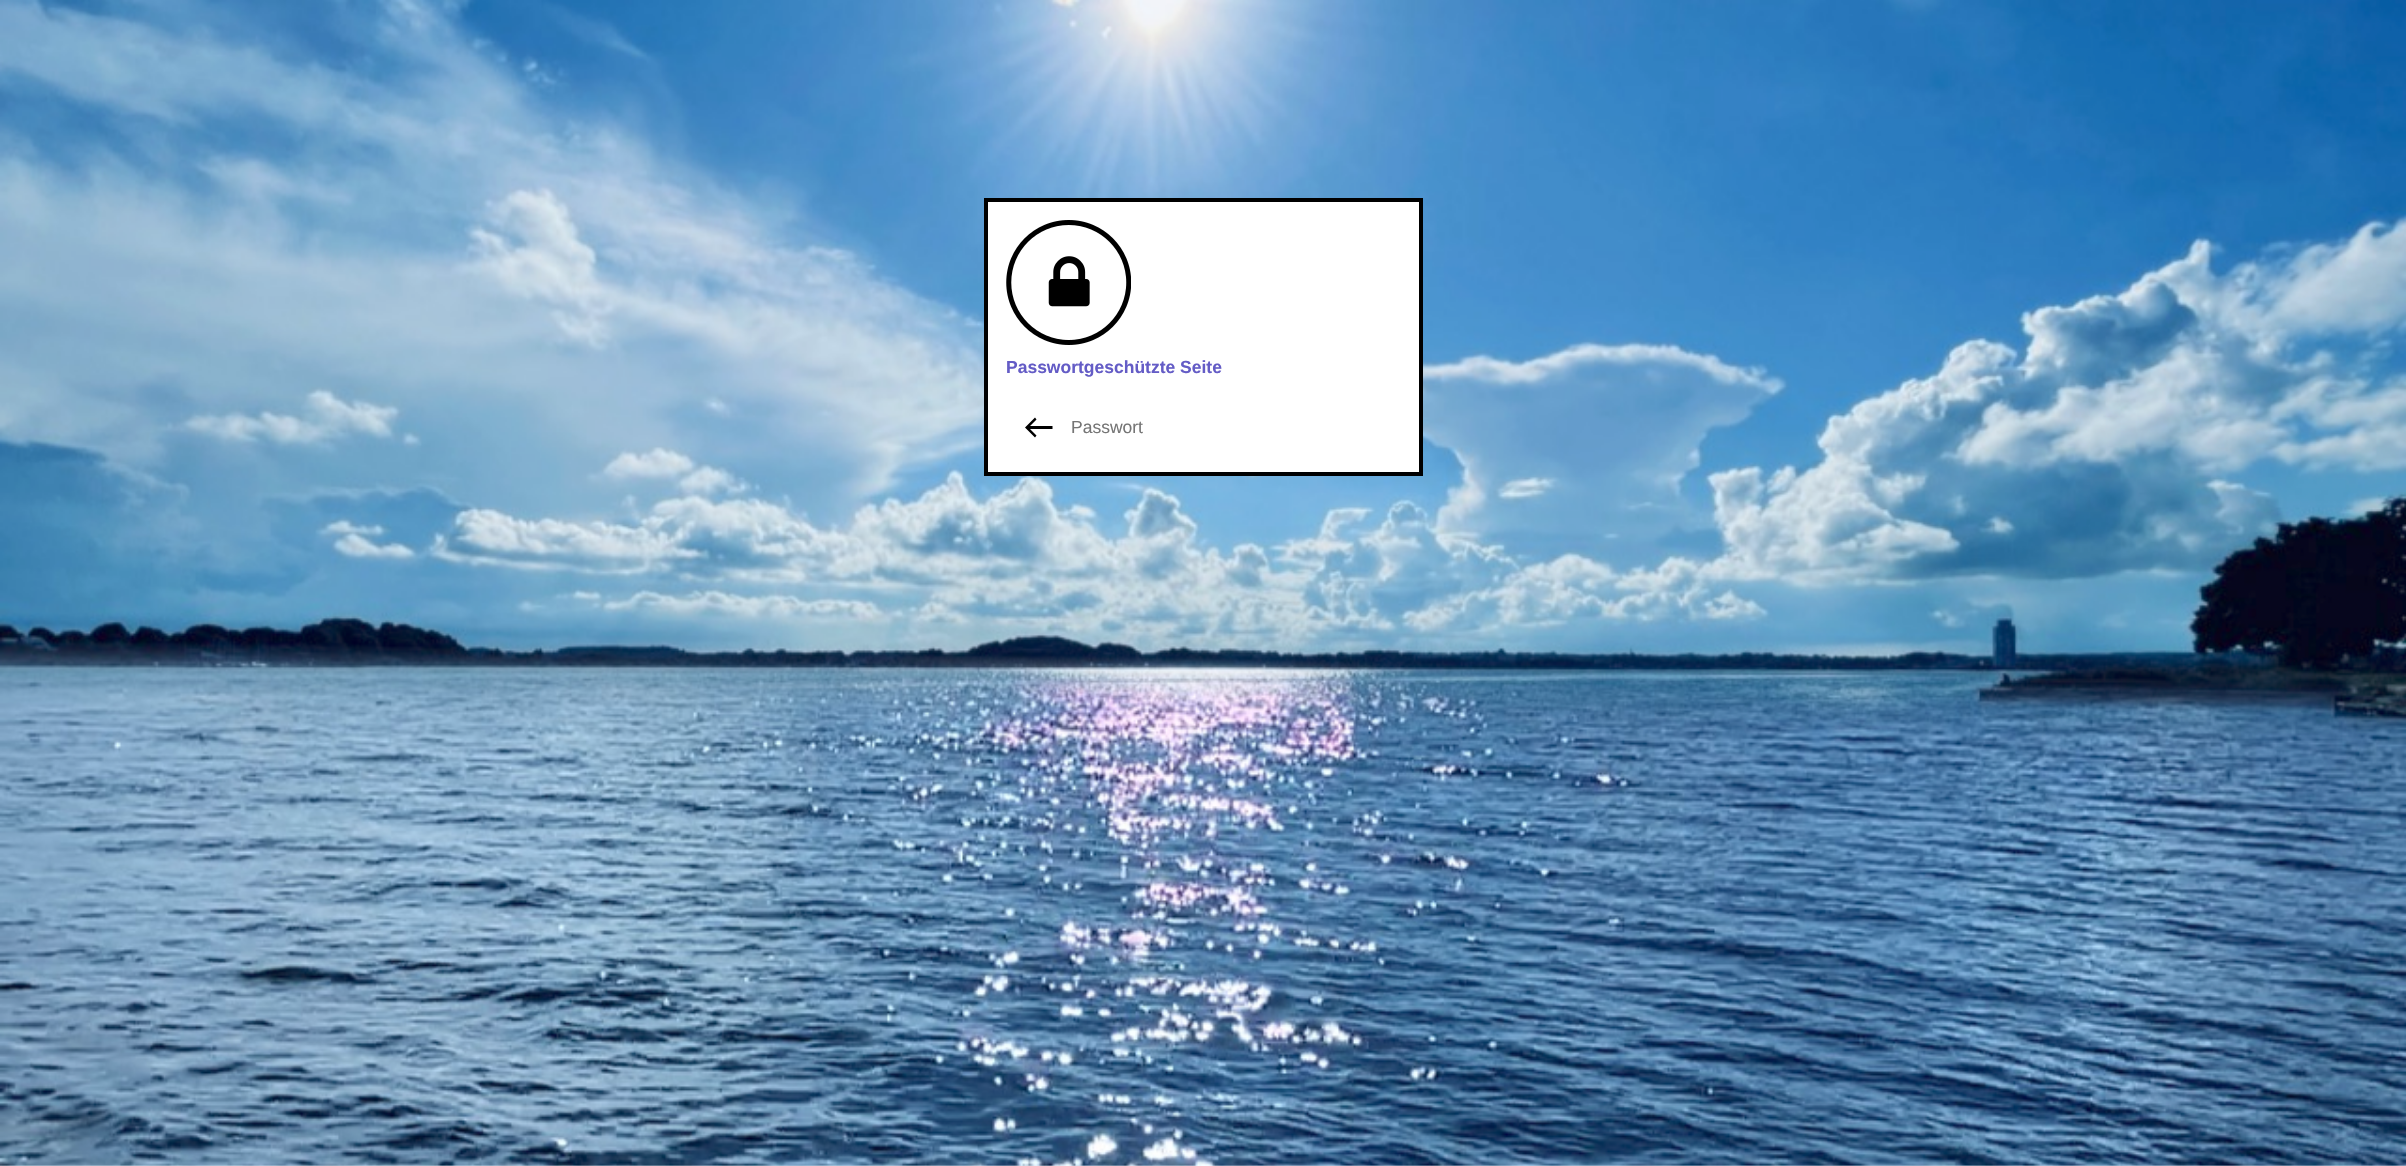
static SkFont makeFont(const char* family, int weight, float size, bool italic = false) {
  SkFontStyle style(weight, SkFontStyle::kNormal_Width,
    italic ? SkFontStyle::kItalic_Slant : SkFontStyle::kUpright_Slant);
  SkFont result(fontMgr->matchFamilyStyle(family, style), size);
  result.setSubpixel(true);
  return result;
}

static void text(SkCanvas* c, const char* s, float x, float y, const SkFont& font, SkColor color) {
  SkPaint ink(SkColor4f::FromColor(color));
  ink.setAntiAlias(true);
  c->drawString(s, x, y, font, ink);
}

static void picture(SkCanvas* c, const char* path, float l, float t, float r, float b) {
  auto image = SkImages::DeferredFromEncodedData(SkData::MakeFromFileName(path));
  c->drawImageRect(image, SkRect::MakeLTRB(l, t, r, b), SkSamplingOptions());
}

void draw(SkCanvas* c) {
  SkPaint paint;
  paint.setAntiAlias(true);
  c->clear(0xffffffff);
  picture(c, "img_01.png", 0, 0, 2406, 1166);
  paint.setColor(0xffffffff);
  c->drawRect(SkRect::MakeLTRB(986, 200, 1421, 474), paint);
  paint.setStyle(SkPaint::kStroke_Style);
  paint.setStrokeWidth(4);
  paint.setColor(0xff000000);
  c->drawRect(SkRect::MakeLTRB(986, 200, 1421, 474), paint);
  picture(c, "img_02.png", 1006, 220, 1131, 345);
  SkFont face1 = makeFont("Liberation Sans", 700, 17.5f);
  text(c, "Passwortgeschützte Seite", 1006, 373, face1, 0xff645cc6);
  paint.setStyle(SkPaint::kFill_Style);
  c->drawPath(SkPathBuilder().moveTo(1035, 417.5f).lineTo(1036.5f, 419.5f).lineTo(1030, 426).lineTo(1052.5f, 426).lineTo(1052.5f, 429).lineTo(1030, 429).lineTo(1036.5f, 435.5f).lineTo(1035, 437.5f).lineTo(1025, 427.5f).close().detach(), paint);
  SkFont face2 = makeFont("Liberation Sans", 400, 17.5f);
  text(c, "Passwort", 1071, 433, face2, 0xff757575);
}
